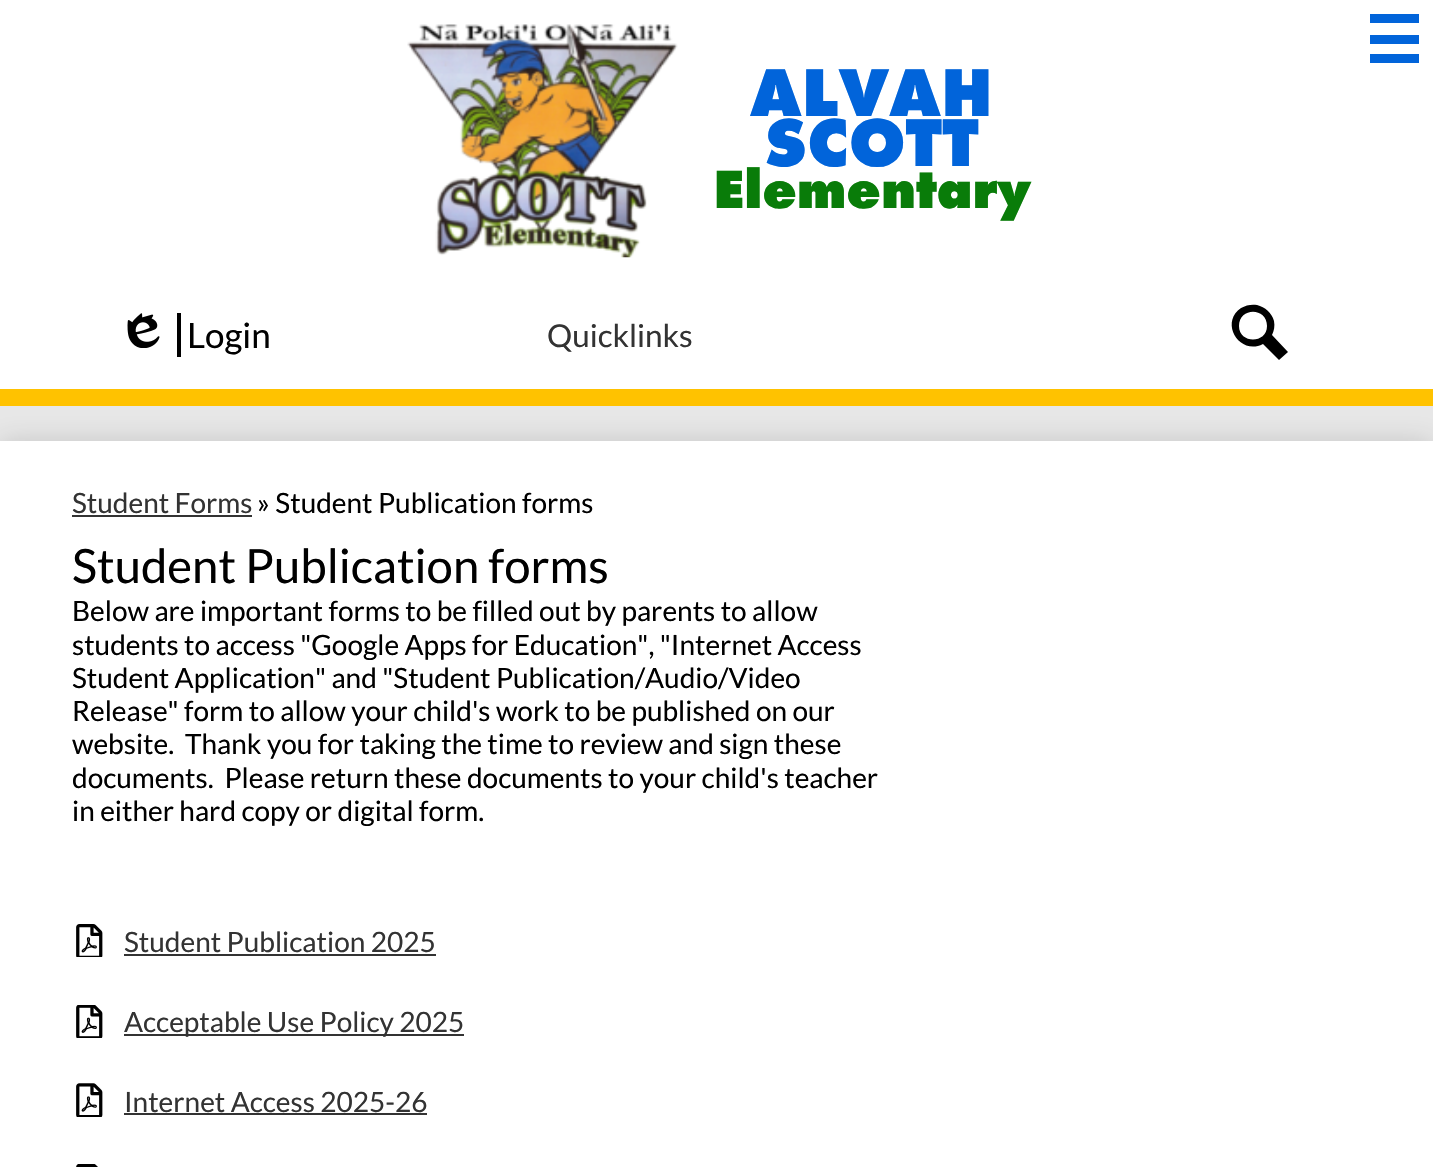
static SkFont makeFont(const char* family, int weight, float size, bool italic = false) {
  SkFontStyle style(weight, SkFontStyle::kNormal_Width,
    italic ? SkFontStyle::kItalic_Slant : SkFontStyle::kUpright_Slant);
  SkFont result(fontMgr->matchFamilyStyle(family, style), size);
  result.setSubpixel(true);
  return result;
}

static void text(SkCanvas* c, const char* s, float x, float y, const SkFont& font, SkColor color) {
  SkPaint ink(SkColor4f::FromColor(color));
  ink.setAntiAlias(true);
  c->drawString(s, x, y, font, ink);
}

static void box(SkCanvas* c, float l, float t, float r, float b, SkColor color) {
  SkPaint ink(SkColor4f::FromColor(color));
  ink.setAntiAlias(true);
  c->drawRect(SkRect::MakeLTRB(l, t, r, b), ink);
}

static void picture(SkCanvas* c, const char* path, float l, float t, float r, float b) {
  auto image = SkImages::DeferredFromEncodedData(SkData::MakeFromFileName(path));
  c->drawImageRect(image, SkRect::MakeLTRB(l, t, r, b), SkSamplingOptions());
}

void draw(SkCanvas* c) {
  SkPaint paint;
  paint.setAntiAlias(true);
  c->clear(0xffe8e8e8);
  box(c, 0, 0, 1433, 389, 0xffffffff);
  paint.setColor(0x26000000);
  paint.setMaskFilter(SkMaskFilter::MakeBlur(kNormal_SkBlurStyle, 13));
  c->drawRect(SkRect::MakeLTRB(0, 441, 1433, 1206), paint);
  paint.setMaskFilter(nullptr);
  box(c, 0, 389, 1433, 406, 0xffffc200);
  box(c, 1370, 14, 1419, 23, 0xff0164da);
  box(c, 1370, 35, 1419, 44, 0xff0164da);
  box(c, 1370, 54, 1419, 63, 0xff0164da);
  picture(c, "img_01.png", 407, 24, 678, 258);
  SkFont face1 = makeFont("Futura PT", 800, 70);
  text(c, "ALVAH", 750, 116, face1, 0xff0164da);
  text(c, "SCOTT", 764, 166, face1, 0xff0164da);
  SkFont face2 = makeFont("Futura PT", 800, 56);
  text(c, "Elementary", 713, 208, face2, 0xff097c09);
  box(c, 177, 313, 181, 357, 0xff000000);
  picture(c, "img_02.png", 127, 313, 160, 348);
  SkFont face3 = makeFont("Lato", 400, 35);
  text(c, "Login", 187, 348, face3, 0xff000000);
  SkFont face4 = makeFont("Lato", 400, 31.5f);
  text(c, "Quicklinks", 547, 347, face4, 0xff333333);
  paint.setColor(0xff000000);
  c->drawPath(SkPathBuilder().moveTo(1288, 352).lineTo(1272, 335).cubicTo(1274, 331, 1275, 326, 1274, 321).cubicTo(1272, 313, 1265, 307, 1257, 305).cubicTo(1252, 304, 1246, 305, 1241, 308).cubicTo(1219, 323, 1240, 356, 1263, 344).lineTo(1279, 360).close().moveTo(1239, 326).cubicTo(1239, 307, 1267, 307, 1267, 326).cubicTo(1267, 344, 1239, 344, 1239, 326).close().detach(), paint);
  box(c, 0, 441, 1433, 1167, 0xffffffff);
  SkFont face5 = makeFont("Lato", 400, 28);
  text(c, "Student Forms", 72, 513, face5, 0xff333333);
  box(c, 72, 515, 252, 517, 0xff333333);
  text(c, "» Student Publication forms", 257, 513, face5, 0xff000000);
  SkFont face6 = makeFont("Lato", 400, 47.25f);
  text(c, "Student Publication forms", 72, 583, face6, 0xff000000);
  text(c, "Below are important forms to be filled out by parents to allow", 72, 621, face5, 0xff000000);
  text(c, "students to access \"Google Apps for Education\", \"Internet Access", 72, 655, face5, 0xff000000);
  text(c, "Student Application\" and \"Student Publication/Audio/Video", 72, 688, face5, 0xff000000);
  text(c, "Release\" form to allow your child's work to be published on our", 72, 721, face5, 0xff000000);
  text(c, "website.  Thank you for taking the time to review and sign these", 72, 754, face5, 0xff000000);
  text(c, "documents.  Please return these documents to your child's teacher", 72, 788, face5, 0xff000000);
  text(c, "in either hard copy or digital form.", 72, 821, face5, 0xff000000);
  picture(c, "img_03.png", 76, 924, 103, 957);
  text(c, "Student Publication 2025", 124, 952, face5, 0xff333333);
  box(c, 124, 954, 436, 956, 0xff333333);
  picture(c, "img_04.png", 76, 1005, 103, 1038);
  box(c, 124, 1034, 464, 1036, 0xff333333);
  text(c, "Acceptable Use Policy 2025", 124, 1032, face5, 0xff333333);
  picture(c, "img_05.png", 76, 1083, 103, 1117);
  text(c, "Internet Access 2025-26", 124, 1112, face5, 0xff333333);
  box(c, 124, 1113, 427, 1115, 0xff333333);
  picture(c, "img_06.png", 76, 1164, 98, 1167);
}
